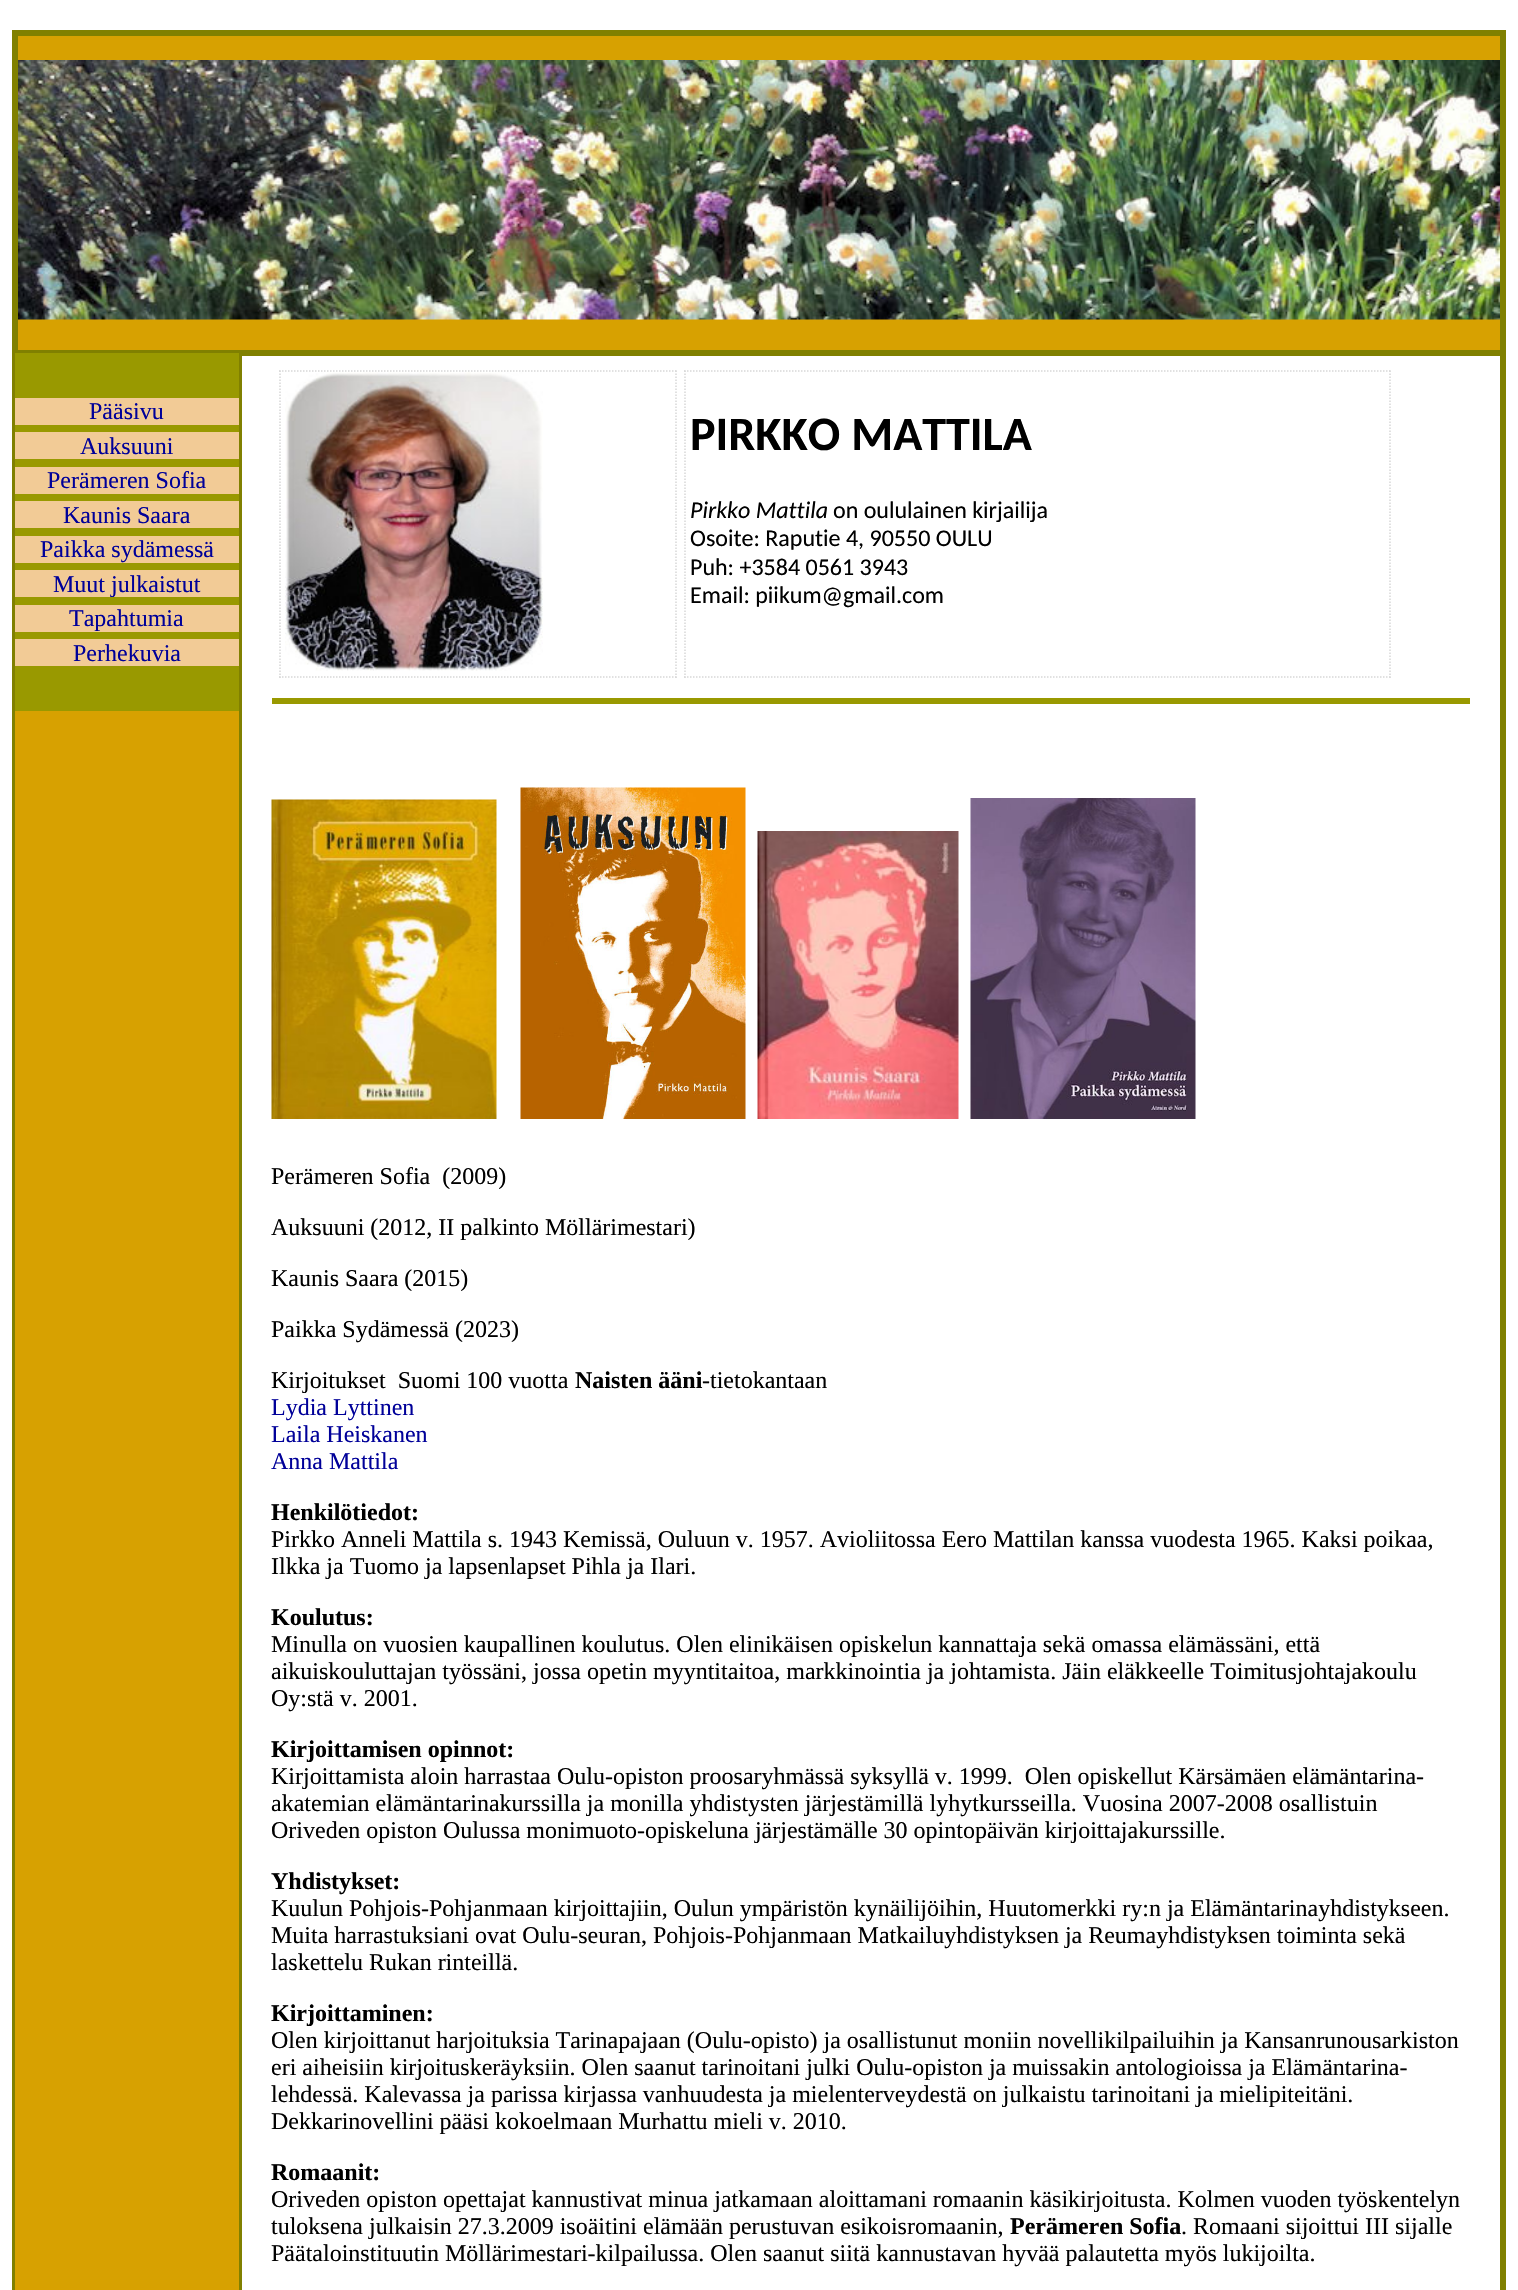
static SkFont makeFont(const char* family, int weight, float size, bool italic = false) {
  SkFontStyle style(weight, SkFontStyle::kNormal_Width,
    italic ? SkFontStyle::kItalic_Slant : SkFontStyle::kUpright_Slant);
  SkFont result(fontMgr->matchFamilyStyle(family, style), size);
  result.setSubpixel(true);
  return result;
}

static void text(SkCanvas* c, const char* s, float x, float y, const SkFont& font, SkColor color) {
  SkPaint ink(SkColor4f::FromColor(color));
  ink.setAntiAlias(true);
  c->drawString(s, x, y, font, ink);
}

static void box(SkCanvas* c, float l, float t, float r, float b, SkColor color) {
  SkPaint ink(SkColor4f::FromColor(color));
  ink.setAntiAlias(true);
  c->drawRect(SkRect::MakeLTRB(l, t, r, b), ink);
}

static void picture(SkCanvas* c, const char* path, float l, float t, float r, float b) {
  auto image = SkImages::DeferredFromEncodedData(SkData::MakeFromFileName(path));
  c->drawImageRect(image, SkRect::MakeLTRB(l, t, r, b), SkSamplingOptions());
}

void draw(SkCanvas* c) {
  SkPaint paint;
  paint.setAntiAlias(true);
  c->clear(0xffffffff);
  box(c, 15, 36, 1500, 2290, 0xffd7a101);
  paint.setStyle(SkPaint::kStroke_Style);
  paint.setStrokeWidth(3);
  paint.setColor(0xff808000);
  c->drawRect(SkRect::MakeLTRB(13.5f, 31.5f, 1504.5f, 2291.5f), paint);
  c->drawRect(SkRect::MakeLTRB(16.5f, 34.5f, 1501.5f, 351.5f), paint);
  picture(c, "img_01.png", 18, 60, 1500, 320);
  box(c, 15, 353, 239, 711, 0xff999900);
  box(c, 15, 398, 239, 425, 0xfff2cb96);
  SkFont face1 = makeFont("Liberation Serif", 400, 24);
  text(c, "Pääsivu", 89, 419, face1, 0xff000099);
  box(c, 15, 432, 239, 459, 0xfff2cb96);
  text(c, "Auksuuni", 80, 454, face1, 0xff000099);
  box(c, 15, 467, 239, 494, 0xfff2cb96);
  text(c, "Perämeren Sofia", 47, 488, face1, 0xff000099);
  box(c, 15, 501, 239, 528, 0xfff2cb96);
  text(c, "Kaunis Saara", 63, 523, face1, 0xff000099);
  box(c, 15, 536, 239, 563, 0xfff2cb96);
  text(c, "Paikka sydämessä", 40, 557, face1, 0xff000099);
  box(c, 15, 570, 239, 597, 0xfff2cb96);
  text(c, "Muut julkaistut", 53, 592, face1, 0xff000099);
  box(c, 15, 605, 239, 632, 0xfff2cb96);
  text(c, "Tapahtumia", 69, 626, face1, 0xff000099);
  box(c, 15, 639, 239, 666, 0xfff2cb96);
  text(c, "Perhekuvia", 73, 661, face1, 0xff000099);
  paint.setStyle(SkPaint::kFill_Style);
  paint.setColor(0xffffffff);
  c->drawRect(SkRect::MakeLTRB(240.5f, 354.5f, 1501.5f, 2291.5f), paint);
  paint.setStyle(SkPaint::kStroke_Style);
  paint.setColor(0xff808000);
  c->drawRect(SkRect::MakeLTRB(240.5f, 354.5f, 1501.5f, 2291.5f), paint);
  paint.setStrokeWidth(1.5f);
  paint.setColor(0xffd8d8d8);
  paint.setPathEffect(SkDashPathEffect::Make({{1.5f, 1.5f}}, 0));
  c->drawPath(SkPathBuilder().moveTo(279, 371).lineTo(676.5f, 371).detach(), paint);
  paint.setPathEffect(nullptr);
  paint.setPathEffect(SkDashPathEffect::Make({{1.5f, 1.5f}}, 0));
  c->drawPath(SkPathBuilder().moveTo(676, 370.5f).lineTo(676, 678).detach(), paint);
  paint.setPathEffect(nullptr);
  paint.setPathEffect(SkDashPathEffect::Make({{1.5f, 1.5f}}, 0));
  c->drawPath(SkPathBuilder().moveTo(279, 677).lineTo(676.5f, 677).detach(), paint);
  paint.setPathEffect(nullptr);
  paint.setPathEffect(SkDashPathEffect::Make({{1.5f, 1.5f}}, 0));
  c->drawPath(SkPathBuilder().moveTo(280, 370.5f).lineTo(280, 678).detach(), paint);
  paint.setPathEffect(nullptr);
  picture(c, "img_02.png", 285, 372, 543, 671);
  paint.setPathEffect(SkDashPathEffect::Make({{1.5f, 1.5f}}, 0));
  c->drawPath(SkPathBuilder().moveTo(684, 371).lineTo(1390.5f, 371).detach(), paint);
  paint.setPathEffect(nullptr);
  paint.setPathEffect(SkDashPathEffect::Make({{1.5f, 1.5f}}, 0));
  c->drawPath(SkPathBuilder().moveTo(1390, 370.5f).lineTo(1390, 678).detach(), paint);
  paint.setPathEffect(nullptr);
  paint.setPathEffect(SkDashPathEffect::Make({{1.5f, 1.5f}}, 0));
  c->drawPath(SkPathBuilder().moveTo(684, 677).lineTo(1390.5f, 677).detach(), paint);
  paint.setPathEffect(nullptr);
  paint.setPathEffect(SkDashPathEffect::Make({{1.5f, 1.5f}}, 0));
  c->drawPath(SkPathBuilder().moveTo(685, 370.5f).lineTo(685, 678).detach(), paint);
  paint.setPathEffect(nullptr);
  SkFont face2 = makeFont("Carlito", 700, 48);
  text(c, "PIRKKO MATTILA", 690, 450, face2, 0xff000000);
  SkFont face3 = makeFont("Carlito", 400, 24, true);
  text(c, "Pirkko Mattila", 690, 518, face3, 0xff000000);
  SkFont face4 = makeFont("Carlito", 400, 24);
  text(c, "on oululainen kirjailija", 833, 518, face4, 0xff000000);
  text(c, "Osoite: Raputie 4, 90550 OULU", 690, 546, face4, 0xff000000);
  text(c, "Puh: +3584 0561 3943", 690, 575, face4, 0xff000000);
  text(c, "Email: piikum@gmail.com", 690, 603, face4, 0xff000000);
  box(c, 272, 698, 1470, 704, 0xff999900);
  picture(c, "img_03.png", 271, 799, 497, 1119);
  picture(c, "img_04.png", 520, 787, 746, 1119);
  picture(c, "img_05.png", 757, 831, 959, 1119);
  picture(c, "img_06.png", 970, 798, 1196, 1119);
  text(c, "Perämeren Sofia  (2009)", 271, 1184, face1, 0xff000000);
  text(c, "Auksuuni (2012, II palkinto Möllärimestari)", 271, 1235, face1, 0xff000000);
  text(c, "Kaunis Saara (2015)", 271, 1286, face1, 0xff000000);
  text(c, "Paikka Sydämessä (2023)", 271, 1337, face1, 0xff000000);
  text(c, "Kirjoitukset  Suomi 100 vuotta", 271, 1388, face1, 0xff000000);
  SkFont face5 = makeFont("Liberation Serif", 700, 24);
  text(c, "Naisten ääni", 575, 1388, face5, 0xff000000);
  text(c, "-tietokantaan", 702, 1388, face1, 0xff000000);
  text(c, "Lydia Lyttinen", 271, 1415, face1, 0xff000099);
  text(c, "Laila Heiskanen", 271, 1442, face1, 0xff000099);
  text(c, "Anna Mattila", 271, 1469, face1, 0xff000099);
  text(c, "Henkilötiedot:", 271, 1520, face5, 0xff000000);
  text(c, "Pirkko Anneli Mattila s. 1943 Kemissä, Ouluun v. 1957. Avioliitossa Eero Mattilan kanssa vuodesta 1965. Kaksi poikaa,", 271, 1547, face1, 0xff000000);
  text(c, "Ilkka ja Tuomo ja lapsenlapset Pihla ja Ilari.", 271, 1574, face1, 0xff000000);
  text(c, "Koulutus:", 271, 1625, face5, 0xff000000);
  text(c, "Minulla on vuosien kaupallinen koulutus. Olen elinikäisen opiskelun kannattaja sekä omassa elämässäni, että", 271, 1652, face1, 0xff000000);
  text(c, "aikuiskouluttajan työssäni, jossa opetin myyntitaitoa, markkinointia ja johtamista. Jäin eläkkeelle Toimitusjohtajakoulu", 271, 1679, face1, 0xff000000);
  text(c, "Oy:stä v. 2001.", 271, 1706, face1, 0xff000000);
  text(c, "Kirjoittamisen opinnot:", 271, 1757, face5, 0xff000000);
  text(c, "Kirjoittamista aloin harrastaa Oulu-opiston proosaryhmässä syksyllä v. 1999.  Olen opiskellut Kärsämäen elämäntarina-", 271, 1784, face1, 0xff000000);
  text(c, "akatemian elämäntarinakurssilla ja monilla yhdistysten järjestämillä lyhytkursseilla. Vuosina 2007-2008 osallistuin", 271, 1811, face1, 0xff000000);
  text(c, "Oriveden opiston Oulussa monimuoto-opiskeluna järjestämälle 30 opintopäivän kirjoittajakurssille.", 271, 1838, face1, 0xff000000);
  text(c, "Yhdistykset:", 271, 1889, face5, 0xff000000);
  text(c, "Kuulun Pohjois-Pohjanmaan kirjoittajiin, Oulun ympäristön kynäilijöihin, Huutomerkki ry:n ja Elämäntarinayhdistykseen.", 271, 1916, face1, 0xff000000);
  text(c, "Muita harrastuksiani ovat Oulu-seuran, Pohjois-Pohjanmaan Matkailuyhdistyksen ja Reumayhdistyksen toiminta sekä", 271, 1943, face1, 0xff000000);
  text(c, "laskettelu Rukan rinteillä.", 271, 1970, face1, 0xff000000);
  text(c, "Kirjoittaminen:", 271, 2021, face5, 0xff000000);
  text(c, "Olen kirjoittanut harjoituksia Tarinapajaan (Oulu-opisto) ja osallistunut moniin novellikilpailuihin ja Kansanrunousarkiston", 271, 2048, face1, 0xff000000);
  text(c, "eri aiheisiin kirjoituskeräyksiin. Olen saanut tarinoitani julki Oulu-opiston ja muissakin antologioissa ja Elämäntarina-", 271, 2075, face1, 0xff000000);
  text(c, "lehdessä. Kalevassa ja parissa kirjassa vanhuudesta ja mielenterveydestä on julkaistu tarinoitani ja mielipiteitäni.", 271, 2102, face1, 0xff000000);
  text(c, "Dekkarinovellini pääsi kokoelmaan Murhattu mieli v. 2010.", 271, 2129, face1, 0xff000000);
  text(c, "Romaanit:", 271, 2180, face5, 0xff000000);
  text(c, "Oriveden opiston opettajat kannustivat minua jatkamaan aloittamani romaanin käsikirjoitusta. Kolmen vuoden työskentelyn", 271, 2207, face1, 0xff000000);
  text(c, "tuloksena julkaisin 27.3.2009 isoäitini elämään perustuvan esikoisromaanin,", 271, 2234, face1, 0xff000000);
  text(c, "Perämeren Sofia", 1010, 2234, face5, 0xff000000);
  text(c, ". Romaani sijoittui III sijalle", 1181, 2234, face1, 0xff000000);
  text(c, "Päätaloinstituutin Möllärimestari-kilpailussa. Olen saanut siitä kannustavan hyvää palautetta myös lukijoilta.", 271, 2261, face1, 0xff000000);
}
